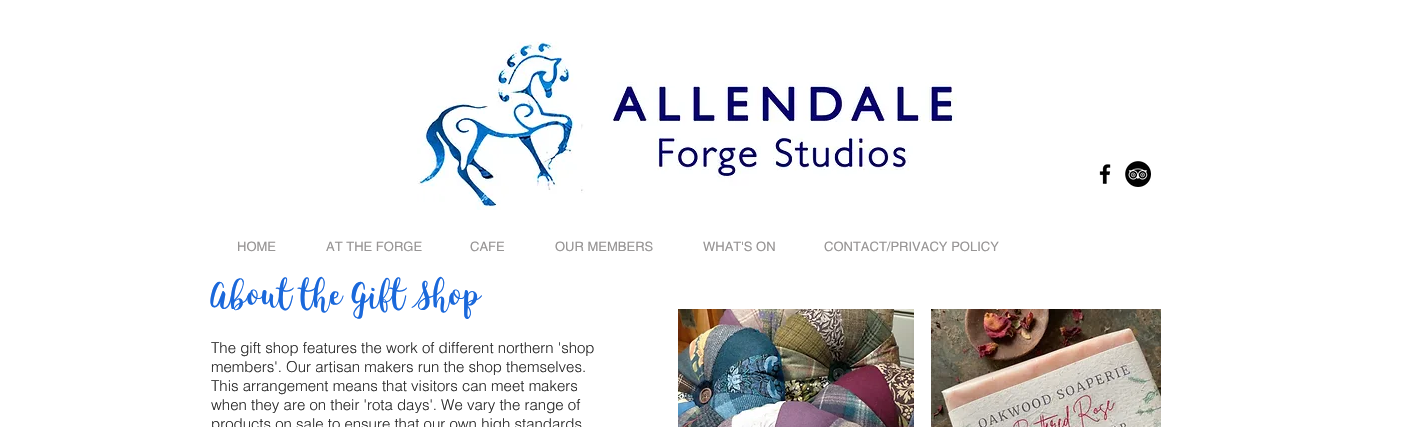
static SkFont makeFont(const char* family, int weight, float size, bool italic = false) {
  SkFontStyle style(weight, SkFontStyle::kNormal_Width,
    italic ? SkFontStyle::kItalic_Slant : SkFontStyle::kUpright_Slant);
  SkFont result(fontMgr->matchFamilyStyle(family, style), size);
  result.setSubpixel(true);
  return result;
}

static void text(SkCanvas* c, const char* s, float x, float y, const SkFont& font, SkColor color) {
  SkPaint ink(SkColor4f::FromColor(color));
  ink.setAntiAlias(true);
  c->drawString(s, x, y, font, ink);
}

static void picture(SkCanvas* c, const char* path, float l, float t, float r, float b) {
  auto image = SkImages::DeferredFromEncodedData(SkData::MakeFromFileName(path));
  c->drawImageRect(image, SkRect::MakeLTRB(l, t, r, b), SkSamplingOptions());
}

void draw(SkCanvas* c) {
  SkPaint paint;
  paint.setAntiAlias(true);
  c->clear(0xffffffff);
  picture(c, "img_01.png", 417, 41, 957, 210);
  picture(c, "img_02.png", 1099, 164, 1111, 184);
  picture(c, "img_03.png", 1125, 161, 1151, 187);
  SkFont face1 = makeFont("helvetica", 400, 13);
  text(c, "HOME", 237, 251, face1, 0xff979595);
  text(c, "AT THE FORGE", 326, 251, face1, 0xff979595);
  text(c, "CAFE", 470, 251, face1, 0xff979595);
  text(c, "OUR MEMBERS", 555, 251, face1, 0xff979595);
  text(c, "WHAT'S ON", 703, 251, face1, 0xff979595);
  text(c, "CONTACT/PRIVACY POLICY", 824, 251, face1, 0xff979595);
  SkFont face2 = makeFont("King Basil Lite", 400, 30);
  text(c, "About the Gift Shop", 211, 306, face2, 0xff1a68db);
  SkFont face3 = makeFont("helvetica", 300, 15);
  text(c, "The gift shop features the work of different northern 'shop", 211, 353, face3, 0xff2b2b2b);
  text(c, "members'. Our artisan makers run the shop themselves.", 211, 372, face3, 0xff2b2b2b);
  text(c, "This arrangement means that visitors can meet makers", 211, 391, face3, 0xff2b2b2b);
  text(c, "when they are on their 'rota days'. We vary the range of", 211, 410, face3, 0xff2b2b2b);
  text(c, "products on sale to ensure that our own high standards", 211, 429, face3, 0xff2b2b2b);
  picture(c, "img_04.png", 678, 309, 914, 427);
  picture(c, "img_05.png", 931, 309, 1161, 427);
}
